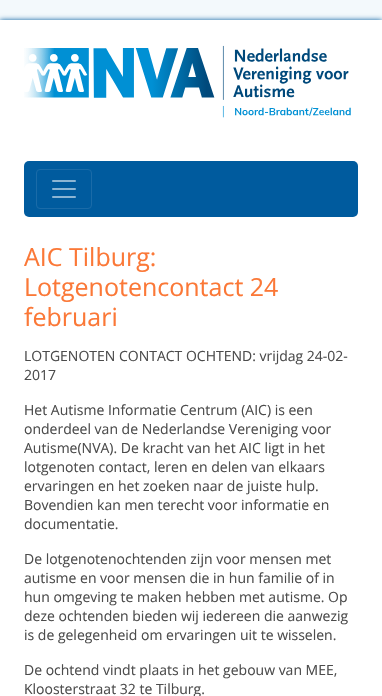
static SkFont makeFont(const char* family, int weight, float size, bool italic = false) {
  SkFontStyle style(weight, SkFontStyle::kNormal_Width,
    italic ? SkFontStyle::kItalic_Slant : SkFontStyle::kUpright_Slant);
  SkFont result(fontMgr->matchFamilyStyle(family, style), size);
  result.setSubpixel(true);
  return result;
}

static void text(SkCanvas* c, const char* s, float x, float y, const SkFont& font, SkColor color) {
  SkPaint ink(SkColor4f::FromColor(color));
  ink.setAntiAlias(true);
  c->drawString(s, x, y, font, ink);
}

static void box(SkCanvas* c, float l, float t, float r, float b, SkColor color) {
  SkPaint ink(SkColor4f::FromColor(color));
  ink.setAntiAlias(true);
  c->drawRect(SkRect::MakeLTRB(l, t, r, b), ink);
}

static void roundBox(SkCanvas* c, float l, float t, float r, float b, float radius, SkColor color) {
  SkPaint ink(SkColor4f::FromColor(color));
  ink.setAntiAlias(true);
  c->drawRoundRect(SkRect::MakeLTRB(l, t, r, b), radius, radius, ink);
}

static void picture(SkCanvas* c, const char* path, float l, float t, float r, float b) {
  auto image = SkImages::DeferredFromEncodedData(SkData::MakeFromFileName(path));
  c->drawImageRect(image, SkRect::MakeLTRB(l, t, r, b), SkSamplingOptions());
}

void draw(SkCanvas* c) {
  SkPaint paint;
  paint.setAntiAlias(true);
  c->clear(0xfff3f9fc);
  paint.setColor(0xff005b9e);
  paint.setMaskFilter(SkMaskFilter::MakeBlur(kNormal_SkBlurStyle, 2.5f));
  c->drawRect(SkRect::MakeLTRB(0, 20, 382, 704), paint);
  paint.setMaskFilter(nullptr);
  box(c, 0, 20, 382, 696, 0xffffffff);
  picture(c, "img_01.png", 24, 45, 351, 118);
  roundBox(c, 24, 161, 358, 217, 5, 0xff005b9e);
  paint.setStyle(SkPaint::kStroke_Style);
  paint.setStrokeWidth(1);
  paint.setColor(0xff1a6ba8);
  c->drawRoundRect(SkRect::MakeLTRB(36.5f, 169.5f, 91.5f, 208.5f), 3.5f, 3.5f, paint);
  picture(c, "img_02.png", 52, 180, 76, 198);
  SkFont face1 = makeFont("Open Sans", 400, 25);
  text(c, "AIC Tilburg:", 24, 266, face1, 0xfffb7837);
  text(c, "Lotgenotencontact 24", 24, 296, face1, 0xfffb7837);
  text(c, "februari", 24, 326, face1, 0xfffb7837);
  SkFont face2 = makeFont("Open Sans", 400, 14);
  text(c, "LOTGENOTEN CONTACT OCHTEND: vrijdag 24-02-", 24, 361, face2, 0xff4c4c4c);
  text(c, "2017", 24, 380, face2, 0xff4c4c4c);
  text(c, "Het Autisme Informatie Centrum (AIC) is een", 24, 415, face2, 0xff4c4c4c);
  text(c, "onderdeel van de Nederlandse Vereniging voor", 24, 434, face2, 0xff4c4c4c);
  text(c, "Autisme(NVA). De kracht van het AIC ligt in het", 24, 453, face2, 0xff4c4c4c);
  text(c, "lotgenoten contact, leren en delen van elkaars", 24, 472, face2, 0xff4c4c4c);
  text(c, "ervaringen en het zoeken naar de juiste hulp.", 24, 491, face2, 0xff4c4c4c);
  text(c, "Bovendien kan men terecht voor informatie en", 24, 510, face2, 0xff4c4c4c);
  text(c, "documentatie.", 24, 529, face2, 0xff4c4c4c);
  text(c, "De lotgenotenochtenden zijn voor mensen met", 24, 564, face2, 0xff4c4c4c);
  text(c, "autisme en voor mensen die in hun familie of in", 24, 583, face2, 0xff4c4c4c);
  text(c, "hun omgeving te maken hebben met autisme. Op", 24, 602, face2, 0xff4c4c4c);
  text(c, "deze ochtenden bieden wij iedereen die aanwezig", 24, 621, face2, 0xff4c4c4c);
  text(c, "is de gelegenheid om ervaringen uit te wisselen.", 24, 640, face2, 0xff4c4c4c);
  text(c, "De ochtend vindt plaats in het gebouw van MEE,", 24, 675, face2, 0xff4c4c4c);
  text(c, "Kloosterstraat 32 te Tilburg.", 24, 694, face2, 0xff4c4c4c);
}
